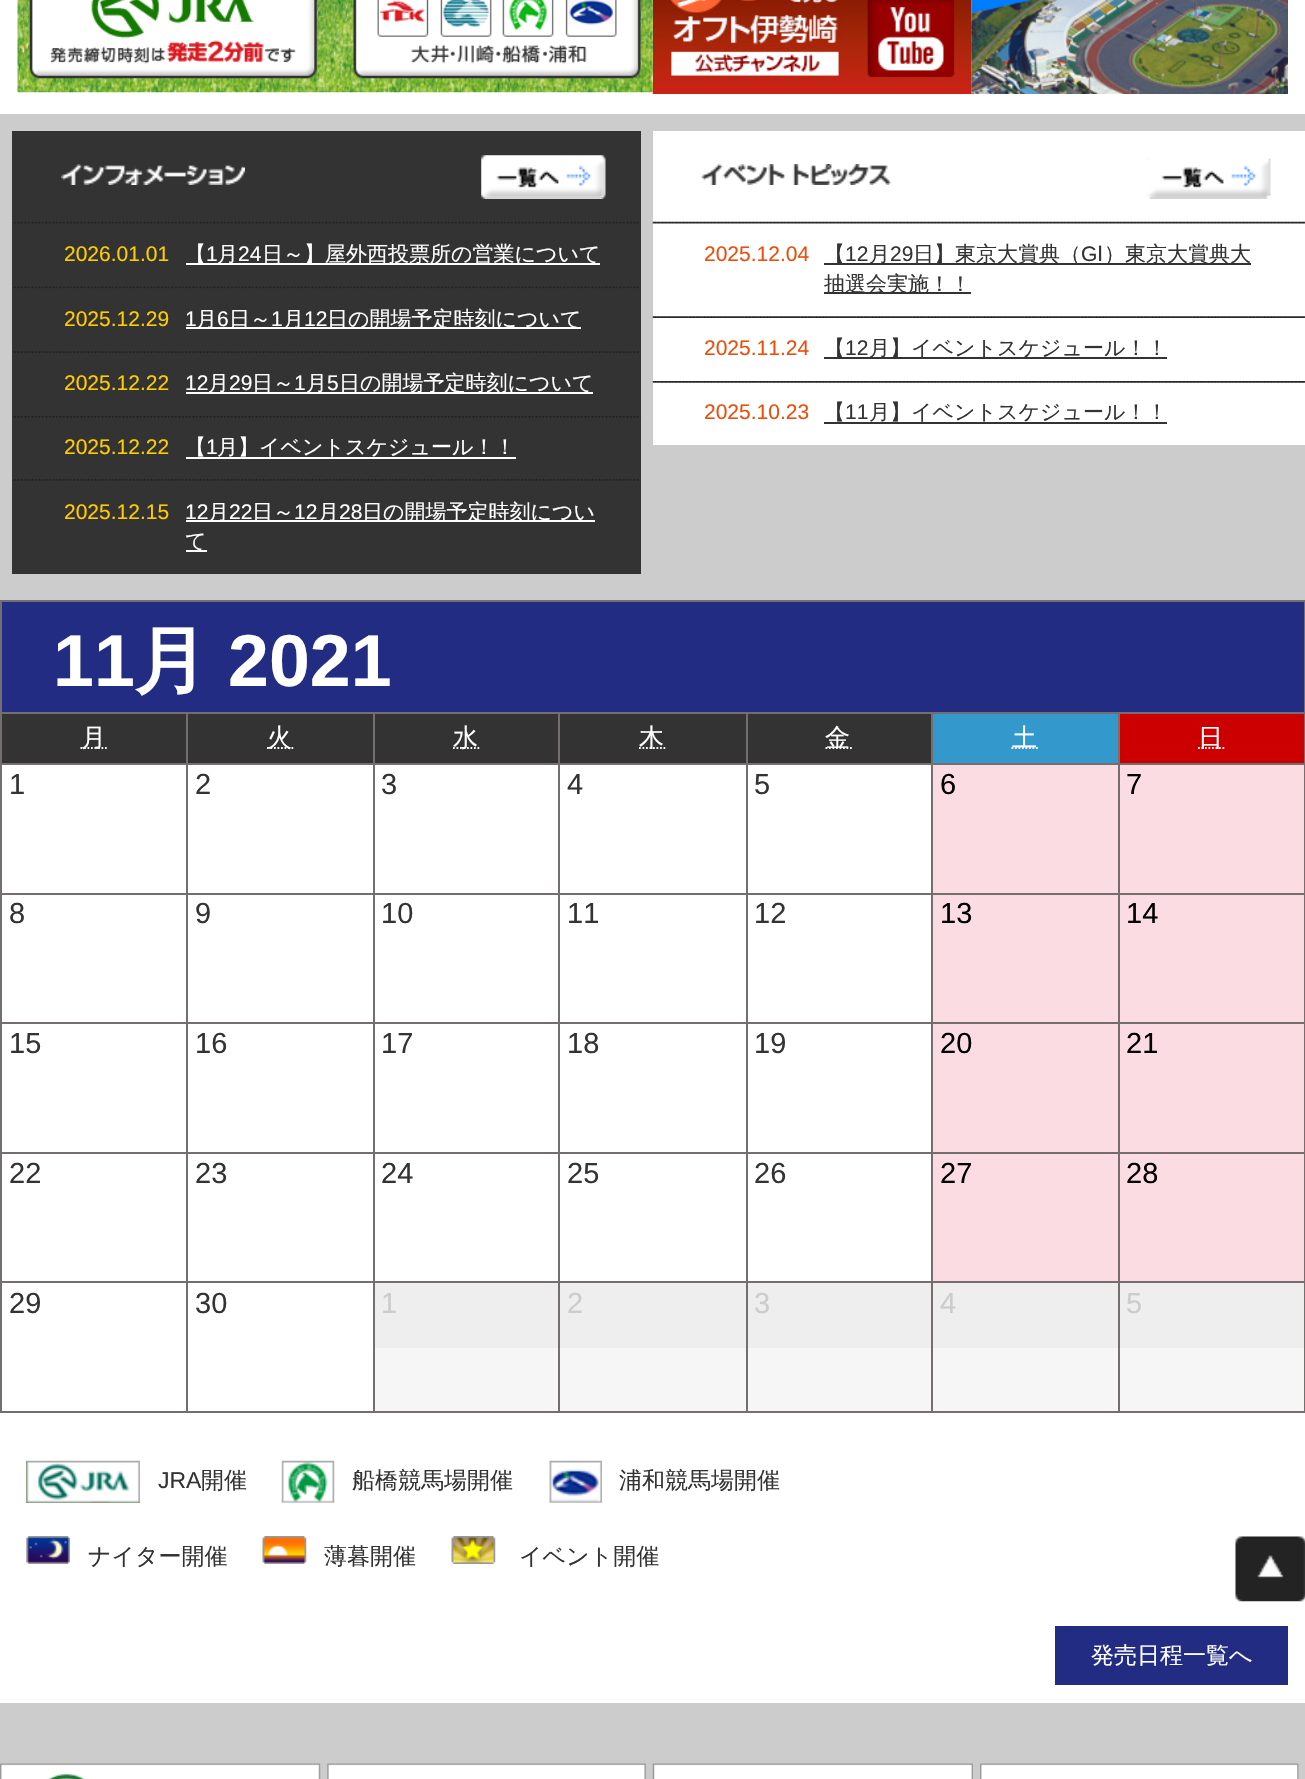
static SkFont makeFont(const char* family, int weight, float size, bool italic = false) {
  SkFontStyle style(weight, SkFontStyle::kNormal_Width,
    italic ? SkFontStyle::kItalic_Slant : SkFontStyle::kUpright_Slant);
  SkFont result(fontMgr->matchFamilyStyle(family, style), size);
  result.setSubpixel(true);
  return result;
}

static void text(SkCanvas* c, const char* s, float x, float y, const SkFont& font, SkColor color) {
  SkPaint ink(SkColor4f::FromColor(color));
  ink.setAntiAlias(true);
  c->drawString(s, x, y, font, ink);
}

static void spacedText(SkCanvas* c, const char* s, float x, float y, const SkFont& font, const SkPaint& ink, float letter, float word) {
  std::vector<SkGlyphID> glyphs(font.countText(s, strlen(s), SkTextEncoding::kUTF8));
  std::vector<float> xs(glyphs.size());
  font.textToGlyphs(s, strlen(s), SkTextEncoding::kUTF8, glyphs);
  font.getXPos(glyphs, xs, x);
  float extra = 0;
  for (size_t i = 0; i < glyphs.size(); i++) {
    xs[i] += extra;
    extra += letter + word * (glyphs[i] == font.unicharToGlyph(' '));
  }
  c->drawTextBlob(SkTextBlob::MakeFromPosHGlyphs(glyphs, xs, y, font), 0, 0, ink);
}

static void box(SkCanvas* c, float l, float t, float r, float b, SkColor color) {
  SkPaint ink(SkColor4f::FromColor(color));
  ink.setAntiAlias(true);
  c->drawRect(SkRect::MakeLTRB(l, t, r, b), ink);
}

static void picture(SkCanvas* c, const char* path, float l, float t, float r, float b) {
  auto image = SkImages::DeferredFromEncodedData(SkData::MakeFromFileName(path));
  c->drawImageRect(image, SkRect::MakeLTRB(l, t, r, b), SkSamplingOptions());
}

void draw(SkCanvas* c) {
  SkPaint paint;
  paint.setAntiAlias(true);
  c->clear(0xffffffff);
  picture(c, "img_04.png", 652, 0, 972, 94);
  picture(c, "img_01.png", 17, 0, 653, 93);
  picture(c, "img_02.png", 29, 0, 317, 79);
  picture(c, "img_03.png", 353, 0, 641, 79);
  picture(c, "img_05.png", 971, 0, 1288, 94);
  box(c, 0, 114, 1305, 1779, 0xffcccccc);
  box(c, 12, 131, 641, 574, 0xff333333);
  picture(c, "img_06.png", 61, 164, 245, 185);
  picture(c, "img_07.png", 481, 155, 606, 199);
  picture(c, "img_08.png", 12, 221, 641, 224);
  SkFont face1 = makeFont("Liberation Sans", 400, 21);
  text(c, "2026.01.01", 64, 261, face1, 0xffffcc00);
  box(c, 186, 263, 600, 265, 0xffffffff);
  SkFont face2 = makeFont("WenQuanYi Zen Hei", 500, 21);
  text(c, "【", 185, 261, face2, 0xffffffff);
  text(c, "1", 206, 261, face1, 0xffffffff);
  text(c, "月", 217, 261, face2, 0xffffffff);
  text(c, "24", 238, 261, face1, 0xffffffff);
  text(c, "日～】屋外西投票所の営業について", 262, 261, face2, 0xffffffff);
  picture(c, "img_09.png", 12, 286, 641, 289);
  text(c, "2025.12.29", 64, 326, face1, 0xffffcc00);
  text(c, "1", 185, 326, face1, 0xffffffff);
  box(c, 186, 327, 581, 329, 0xffffffff);
  text(c, "月", 196, 326, face2, 0xffffffff);
  text(c, "6", 217, 326, face1, 0xffffffff);
  text(c, "日～", 229, 326, face2, 0xffffffff);
  text(c, "1", 271, 326, face1, 0xffffffff);
  text(c, "月", 283, 326, face2, 0xffffffff);
  text(c, "12", 304, 326, face1, 0xffffffff);
  text(c, "日の開場予定時刻について", 327, 326, face2, 0xffffffff);
  picture(c, "img_10.png", 12, 351, 641, 353);
  text(c, "2025.12.22", 64, 390, face1, 0xffffcc00);
  text(c, "12", 185, 390, face1, 0xffffffff);
  box(c, 186, 392, 593, 394, 0xffffffff);
  text(c, "月", 208, 390, face2, 0xffffffff);
  text(c, "29", 229, 390, face1, 0xffffffff);
  text(c, "日～", 252, 390, face2, 0xffffffff);
  text(c, "1", 294, 390, face1, 0xffffffff);
  text(c, "月", 306, 390, face2, 0xffffffff);
  text(c, "5", 327, 390, face1, 0xffffffff);
  text(c, "日の開場予定時刻について", 339, 390, face2, 0xffffffff);
  picture(c, "img_11.png", 12, 416, 641, 418);
  text(c, "2025.12.22", 64, 454, face1, 0xffffcc00);
  text(c, "【", 185, 454, face2, 0xffffffff);
  box(c, 186, 457, 516, 459, 0xffffffff);
  text(c, "1", 206, 454, face1, 0xffffffff);
  text(c, "月】イベントスケジュール！！", 217, 454, face2, 0xffffffff);
  picture(c, "img_11.png", 12, 479, 641, 481);
  text(c, "2025.12.15", 64, 519, face1, 0xffffcc00);
  text(c, "12", 185, 519, face1, 0xffffffff);
  box(c, 186, 520, 595, 522, 0xffffffff);
  text(c, "月", 208, 519, face2, 0xffffffff);
  text(c, "22", 229, 519, face1, 0xffffffff);
  text(c, "日～", 252, 519, face2, 0xffffffff);
  text(c, "12", 294, 519, face1, 0xffffffff);
  text(c, "月", 318, 519, face2, 0xffffffff);
  text(c, "28", 339, 519, face1, 0xffffffff);
  text(c, "日の開場予定時刻につい", 362, 519, face2, 0xffffffff);
  box(c, 186, 550, 207, 552, 0xffffffff);
  text(c, "て", 185, 548, face2, 0xffffffff);
  box(c, 653, 131, 1305, 445, 0xffffffff);
  picture(c, "img_12.png", 701, 164, 891, 185);
  picture(c, "img_13.png", 1146, 158, 1271, 199);
  picture(c, "img_14.png", 652, 221, 1305, 224);
  text(c, "2025.12.04", 704, 261, face1, 0xffea4e0d);
  box(c, 824, 263, 1251, 265, 0xff333333);
  text(c, "【", 824, 261, face2, 0xff333333);
  text(c, "12", 845, 261, face1, 0xff333333);
  text(c, "月", 869, 261, face2, 0xff333333);
  text(c, "29", 890, 261, face1, 0xff333333);
  text(c, "日】東京大賞典（", 913, 261, face2, 0xff333333);
  text(c, "G", 1081, 261, face1, 0xff333333);
  SkFont face3 = makeFont("DejaVu Sans", 400, 21);
  text(c, "Ⅰ", 1097, 261, face3, 0xff333333);
  text(c, "）東京大賞典大", 1104, 261, face2, 0xff333333);
  box(c, 824, 292, 971, 294, 0xff333333);
  text(c, "抽選会実施！！", 824, 291, face2, 0xff333333);
  picture(c, "img_15.png", 652, 316, 1305, 318);
  text(c, "2025.11.24", 704, 355, face1, 0xffea4e0d);
  box(c, 824, 357, 1167, 359, 0xff333333);
  text(c, "【", 824, 355, face2, 0xff333333);
  text(c, "12", 845, 355, face1, 0xff333333);
  text(c, "月】イベントスケジュール！！", 869, 355, face2, 0xff333333);
  picture(c, "img_16.png", 652, 381, 1305, 383);
  text(c, "2025.10.23", 704, 419, face1, 0xffea4e0d);
  text(c, "【", 824, 419, face2, 0xff333333);
  box(c, 824, 422, 1167, 424, 0xff333333);
  text(c, "11", 845, 419, face1, 0xff333333);
  text(c, "月】イベントスケジュール！！", 869, 419, face2, 0xff333333);
  box(c, 0, 1413, 1305, 1608, 0xffffffff);
  box(c, 0, 600, 1305, 602, 0xff756e6e);
  box(c, 1304, 600, 1305, 1412, 0xff756e6e);
  box(c, 0, 1411, 1305, 1413, 0xff756e6e);
  box(c, 0, 600, 2, 1412, 0xff756e6e);
  box(c, 2, 602, 1304, 712, 0xff232c83);
  SkFont face4 = makeFont("Liberation Sans", 700, 73.5f);
  text(c, "11", 53, 686, face4, 0xffffffff);
  SkFont face5 = makeFont("WenQuanYi Zen Hei", 700, 73.5f);
  text(c, "月", 134, 686, face5, 0xffffffff);
  text(c, "2021", 228, 686, face4, 0xffffffff);
  box(c, 2, 714, 186, 763, 0xff333333);
  box(c, 1118, 712, 1305, 714, 0xff756e6e);
  box(c, 1118, 763, 1305, 765, 0xff756e6e);
  box(c, 1118, 893, 1305, 895, 0xff756e6e);
  box(c, 1118, 1022, 1305, 1024, 0xff756e6e);
  box(c, 1118, 1152, 1305, 1154, 0xff756e6e);
  box(c, 1118, 1281, 1305, 1283, 0xff756e6e);
  box(c, 1118, 1281, 1120, 1412, 0xff756e6e);
  box(c, 931, 1281, 1120, 1283, 0xff756e6e);
  box(c, 1118, 1152, 1120, 1283, 0xff756e6e);
  box(c, 931, 1152, 1120, 1154, 0xff756e6e);
  box(c, 1118, 1022, 1120, 1153, 0xff756e6e);
  box(c, 931, 1022, 1120, 1024, 0xff756e6e);
  box(c, 1118, 893, 1120, 1024, 0xff756e6e);
  box(c, 931, 893, 1120, 895, 0xff756e6e);
  box(c, 1118, 763, 1120, 894, 0xff756e6e);
  box(c, 931, 763, 1120, 765, 0xff756e6e);
  box(c, 1118, 712, 1120, 765, 0xff756e6e);
  box(c, 931, 712, 1120, 714, 0xff756e6e);
  box(c, 931, 1281, 933, 1412, 0xff756e6e);
  box(c, 746, 1281, 933, 1283, 0xff756e6e);
  box(c, 931, 1152, 933, 1283, 0xff756e6e);
  box(c, 746, 1152, 933, 1154, 0xff756e6e);
  box(c, 931, 1022, 933, 1153, 0xff756e6e);
  box(c, 746, 1022, 933, 1024, 0xff756e6e);
  box(c, 931, 893, 933, 1024, 0xff756e6e);
  box(c, 746, 893, 933, 895, 0xff756e6e);
  box(c, 931, 763, 933, 894, 0xff756e6e);
  box(c, 746, 763, 933, 765, 0xff756e6e);
  box(c, 931, 712, 933, 765, 0xff756e6e);
  box(c, 746, 712, 933, 714, 0xff756e6e);
  box(c, 746, 1281, 748, 1412, 0xff756e6e);
  box(c, 558, 1281, 747, 1283, 0xff756e6e);
  box(c, 746, 1152, 748, 1283, 0xff756e6e);
  box(c, 558, 1152, 747, 1154, 0xff756e6e);
  box(c, 746, 1022, 748, 1153, 0xff756e6e);
  box(c, 558, 1022, 747, 1024, 0xff756e6e);
  box(c, 746, 893, 748, 1024, 0xff756e6e);
  box(c, 558, 893, 747, 895, 0xff756e6e);
  box(c, 746, 763, 748, 894, 0xff756e6e);
  box(c, 558, 763, 747, 765, 0xff756e6e);
  box(c, 746, 712, 748, 765, 0xff756e6e);
  box(c, 558, 712, 747, 714, 0xff756e6e);
  box(c, 558, 1281, 560, 1412, 0xff756e6e);
  box(c, 373, 1281, 560, 1283, 0xff756e6e);
  box(c, 558, 1152, 560, 1283, 0xff756e6e);
  box(c, 373, 1152, 560, 1154, 0xff756e6e);
  box(c, 558, 1022, 560, 1153, 0xff756e6e);
  box(c, 373, 1022, 560, 1024, 0xff756e6e);
  box(c, 558, 893, 560, 1024, 0xff756e6e);
  box(c, 373, 893, 560, 895, 0xff756e6e);
  box(c, 558, 763, 560, 894, 0xff756e6e);
  box(c, 373, 763, 560, 765, 0xff756e6e);
  box(c, 558, 712, 560, 765, 0xff756e6e);
  box(c, 373, 712, 560, 714, 0xff756e6e);
  box(c, 373, 1281, 375, 1412, 0xff756e6e);
  box(c, 186, 1281, 375, 1283, 0xff756e6e);
  box(c, 373, 1152, 375, 1283, 0xff756e6e);
  box(c, 186, 1152, 375, 1154, 0xff756e6e);
  box(c, 373, 1022, 375, 1153, 0xff756e6e);
  box(c, 186, 1022, 375, 1024, 0xff756e6e);
  box(c, 373, 893, 375, 1024, 0xff756e6e);
  box(c, 186, 893, 375, 895, 0xff756e6e);
  box(c, 373, 763, 375, 894, 0xff756e6e);
  box(c, 186, 763, 375, 765, 0xff756e6e);
  box(c, 373, 712, 375, 765, 0xff756e6e);
  box(c, 186, 712, 375, 714, 0xff756e6e);
  box(c, 186, 1281, 188, 1412, 0xff756e6e);
  box(c, 0, 1281, 187, 1283, 0xff756e6e);
  box(c, 186, 1152, 188, 1283, 0xff756e6e);
  box(c, 0, 1152, 187, 1154, 0xff756e6e);
  box(c, 186, 1022, 188, 1153, 0xff756e6e);
  box(c, 0, 1022, 187, 1024, 0xff756e6e);
  box(c, 186, 893, 188, 1024, 0xff756e6e);
  box(c, 0, 893, 187, 895, 0xff756e6e);
  box(c, 186, 763, 188, 894, 0xff756e6e);
  box(c, 0, 763, 187, 765, 0xff756e6e);
  box(c, 186, 712, 188, 765, 0xff756e6e);
  box(c, 0, 712, 187, 714, 0xff756e6e);
  paint.setStyle(SkPaint::kStroke_Style);
  paint.setStrokeWidth(1.8f);
  paint.setColor(0xffffffff);
  paint.setPathEffect(SkDashPathEffect::Make({{1.75f, 1.75f}}, 0));
  c->drawPath(SkPathBuilder().moveTo(80.5f, 748).lineTo(107.5f, 748).detach(), paint);
  paint.setPathEffect(nullptr);
  SkFont face6 = makeFont("WenQuanYi Zen Hei", 500, 25);
  paint.setStyle(SkPaint::kFill_Style);
  spacedText(c, "月", 81, 746, face6, paint, 2, 0);
  box(c, 188, 714, 373, 763, 0xff333333);
  paint.setStyle(SkPaint::kStroke_Style);
  paint.setPathEffect(SkDashPathEffect::Make({{1.75f, 1.75f}}, 0));
  c->drawPath(SkPathBuilder().moveTo(267, 748).lineTo(293.5f, 748).detach(), paint);
  paint.setPathEffect(nullptr);
  paint.setStyle(SkPaint::kFill_Style);
  spacedText(c, "火", 267, 746, face6, paint, 2, 0);
  box(c, 375, 714, 558, 763, 0xff333333);
  paint.setStyle(SkPaint::kStroke_Style);
  paint.setPathEffect(SkDashPathEffect::Make({{1.75f, 1.75f}}, 0));
  c->drawPath(SkPathBuilder().moveTo(453, 748).lineTo(480, 748).detach(), paint);
  paint.setPathEffect(nullptr);
  paint.setStyle(SkPaint::kFill_Style);
  spacedText(c, "水", 453, 746, face6, paint, 2, 0);
  box(c, 560, 714, 746, 763, 0xff333333);
  paint.setStyle(SkPaint::kStroke_Style);
  paint.setPathEffect(SkDashPathEffect::Make({{1.75f, 1.75f}}, 0));
  c->drawPath(SkPathBuilder().moveTo(639, 748).lineTo(666, 748).detach(), paint);
  paint.setPathEffect(nullptr);
  paint.setStyle(SkPaint::kFill_Style);
  spacedText(c, "木", 639, 746, face6, paint, 2, 0);
  box(c, 748, 714, 931, 763, 0xff333333);
  paint.setStyle(SkPaint::kStroke_Style);
  paint.setPathEffect(SkDashPathEffect::Make({{1.75f, 1.75f}}, 0));
  c->drawPath(SkPathBuilder().moveTo(825.5f, 748).lineTo(852.5f, 748).detach(), paint);
  paint.setPathEffect(nullptr);
  paint.setStyle(SkPaint::kFill_Style);
  spacedText(c, "金", 825, 746, face6, paint, 2, 0);
  box(c, 933, 714, 1118, 763, 0xff3399cc);
  paint.setStyle(SkPaint::kStroke_Style);
  paint.setPathEffect(SkDashPathEffect::Make({{1.75f, 1.75f}}, 0));
  c->drawPath(SkPathBuilder().moveTo(1011.5f, 748).lineTo(1038.5f, 748).detach(), paint);
  paint.setPathEffect(nullptr);
  paint.setStyle(SkPaint::kFill_Style);
  spacedText(c, "土", 1012, 746, face6, paint, 2, 0);
  box(c, 1120, 714, 1304, 763, 0xffcc0000);
  paint.setStyle(SkPaint::kStroke_Style);
  paint.setPathEffect(SkDashPathEffect::Make({{1.75f, 1.75f}}, 0));
  c->drawPath(SkPathBuilder().moveTo(1198, 748).lineTo(1225, 748).detach(), paint);
  paint.setPathEffect(nullptr);
  paint.setStyle(SkPaint::kFill_Style);
  spacedText(c, "日", 1198, 746, face6, paint, 2, 0);
  box(c, 2, 765, 186, 893, 0xffffffff);
  SkFont face7 = makeFont("Liberation Sans", 400, 29);
  text(c, "1", 9, 794, face7, 0xff333333);
  box(c, 188, 765, 373, 893, 0xffffffff);
  text(c, "2", 195, 794, face7, 0xff333333);
  box(c, 375, 765, 558, 893, 0xffffffff);
  text(c, "3", 381, 794, face7, 0xff333333);
  box(c, 560, 765, 746, 893, 0xffffffff);
  text(c, "4", 567, 794, face7, 0xff333333);
  box(c, 748, 765, 931, 893, 0xffffffff);
  text(c, "5", 754, 794, face7, 0xff333333);
  box(c, 933, 765, 1118, 893, 0xfffbdce3);
  text(c, "6", 940, 794, face7, 0xff000000);
  box(c, 1120, 765, 1304, 893, 0xfffbdce3);
  text(c, "7", 1126, 794, face7, 0xff000000);
  box(c, 2, 895, 186, 1022, 0xffffffff);
  text(c, "8", 9, 923, face7, 0xff333333);
  box(c, 188, 895, 373, 1022, 0xffffffff);
  text(c, "9", 195, 923, face7, 0xff333333);
  box(c, 375, 895, 558, 1022, 0xffffffff);
  text(c, "10", 381, 923, face7, 0xff333333);
  box(c, 560, 895, 746, 1022, 0xffffffff);
  text(c, "11", 567, 923, face7, 0xff333333);
  box(c, 748, 895, 931, 1022, 0xffffffff);
  text(c, "12", 754, 923, face7, 0xff333333);
  box(c, 933, 895, 1118, 1022, 0xfffbdce3);
  text(c, "13", 940, 923, face7, 0xff000000);
  box(c, 1120, 895, 1304, 1022, 0xfffbdce3);
  text(c, "14", 1126, 923, face7, 0xff000000);
  box(c, 2, 1024, 186, 1152, 0xffffffff);
  text(c, "15", 9, 1053, face7, 0xff333333);
  box(c, 188, 1024, 373, 1152, 0xffffffff);
  text(c, "16", 195, 1053, face7, 0xff333333);
  box(c, 375, 1024, 558, 1152, 0xffffffff);
  text(c, "17", 381, 1053, face7, 0xff333333);
  box(c, 560, 1024, 746, 1152, 0xffffffff);
  text(c, "18", 567, 1053, face7, 0xff333333);
  box(c, 748, 1024, 931, 1152, 0xffffffff);
  text(c, "19", 754, 1053, face7, 0xff333333);
  box(c, 933, 1024, 1118, 1152, 0xfffbdce3);
  text(c, "20", 940, 1053, face7, 0xff000000);
  box(c, 1120, 1024, 1304, 1152, 0xfffbdce3);
  text(c, "21", 1126, 1053, face7, 0xff000000);
  box(c, 2, 1154, 186, 1281, 0xffffffff);
  text(c, "22", 9, 1183, face7, 0xff333333);
  box(c, 188, 1154, 373, 1281, 0xffffffff);
  text(c, "23", 195, 1183, face7, 0xff333333);
  box(c, 375, 1154, 558, 1281, 0xffffffff);
  text(c, "24", 381, 1183, face7, 0xff333333);
  box(c, 560, 1154, 746, 1281, 0xffffffff);
  text(c, "25", 567, 1183, face7, 0xff333333);
  box(c, 748, 1154, 931, 1281, 0xffffffff);
  text(c, "26", 754, 1183, face7, 0xff333333);
  box(c, 933, 1154, 1118, 1281, 0xfffbdce3);
  text(c, "27", 940, 1183, face7, 0xff000000);
  box(c, 1120, 1154, 1304, 1281, 0xfffbdce3);
  text(c, "28", 1126, 1183, face7, 0xff000000);
  box(c, 2, 1283, 186, 1411, 0xffffffff);
  text(c, "29", 9, 1313, face7, 0xff333333);
  box(c, 188, 1283, 373, 1411, 0xffffffff);
  text(c, "30", 195, 1313, face7, 0xff333333);
  box(c, 375, 1348, 558, 1411, 0xfff6f6f6);
  box(c, 375, 1283, 558, 1348, 0xffeeeeee);
  text(c, "1", 381, 1313, face7, 0xffcccccc);
  box(c, 560, 1348, 746, 1411, 0xfff6f6f6);
  box(c, 560, 1283, 746, 1348, 0xffeeeeee);
  text(c, "2", 567, 1313, face7, 0xffcccccc);
  box(c, 748, 1348, 931, 1411, 0xfff6f6f6);
  box(c, 748, 1283, 931, 1348, 0xffeeeeee);
  text(c, "3", 754, 1313, face7, 0xffcccccc);
  box(c, 933, 1348, 1118, 1411, 0xfff6f6f6);
  box(c, 933, 1283, 1118, 1348, 0xffeeeeee);
  text(c, "4", 940, 1313, face7, 0xffcccccc);
  box(c, 1120, 1348, 1304, 1411, 0xfff6f6f6);
  box(c, 1120, 1283, 1304, 1348, 0xffeeeeee);
  text(c, "5", 1126, 1313, face7, 0xffcccccc);
  box(c, 26, 1461, 140, 1503, 0xff1b7a00);
  picture(c, "img_17.png", 26, 1460, 140, 1503);
  SkFont face8 = makeFont("Liberation Sans", 400, 23);
  text(c, "JRA", 158, 1488, face8, 0xff333333);
  SkFont face9 = makeFont("WenQuanYi Zen Hei", 500, 23);
  text(c, "開催", 201, 1488, face9, 0xff333333);
  picture(c, "img_18.png", 281, 1460, 335, 1503);
  text(c, "船橋競馬場開催", 352, 1488, face9, 0xff333333);
  picture(c, "img_19.png", 549, 1460, 602, 1503);
  text(c, "浦和競馬場開催", 619, 1488, face9, 0xff333333);
  picture(c, "img_20.png", 26, 1536, 70, 1564);
  text(c, "ナイター開催", 88, 1564, face9, 0xff333333);
  picture(c, "img_21.png", 262, 1536, 307, 1564);
  text(c, "薄暮開催", 324, 1564, face9, 0xff333333);
  picture(c, "img_22.png", 451, 1536, 496, 1564);
  text(c, "イベント開催", 519, 1564, face9, 0xff333333);
  box(c, 0, 1608, 1305, 1703, 0xffffffff);
  box(c, 1055, 1626, 1288, 1685, 0xff232c83);
  text(c, "発売日程一覧へ", 1091, 1663, face9, 0xffffffff);
  picture(c, "img_23.png", 1235, 1536, 1305, 1602);
  picture(c, "img_24.png", 0, 1763, 321, 1779);
  picture(c, "img_25.png", 327, 1763, 646, 1779);
  picture(c, "img_26.png", 652, 1763, 973, 1779);
  picture(c, "img_27.png", 980, 1763, 1299, 1779);
}
